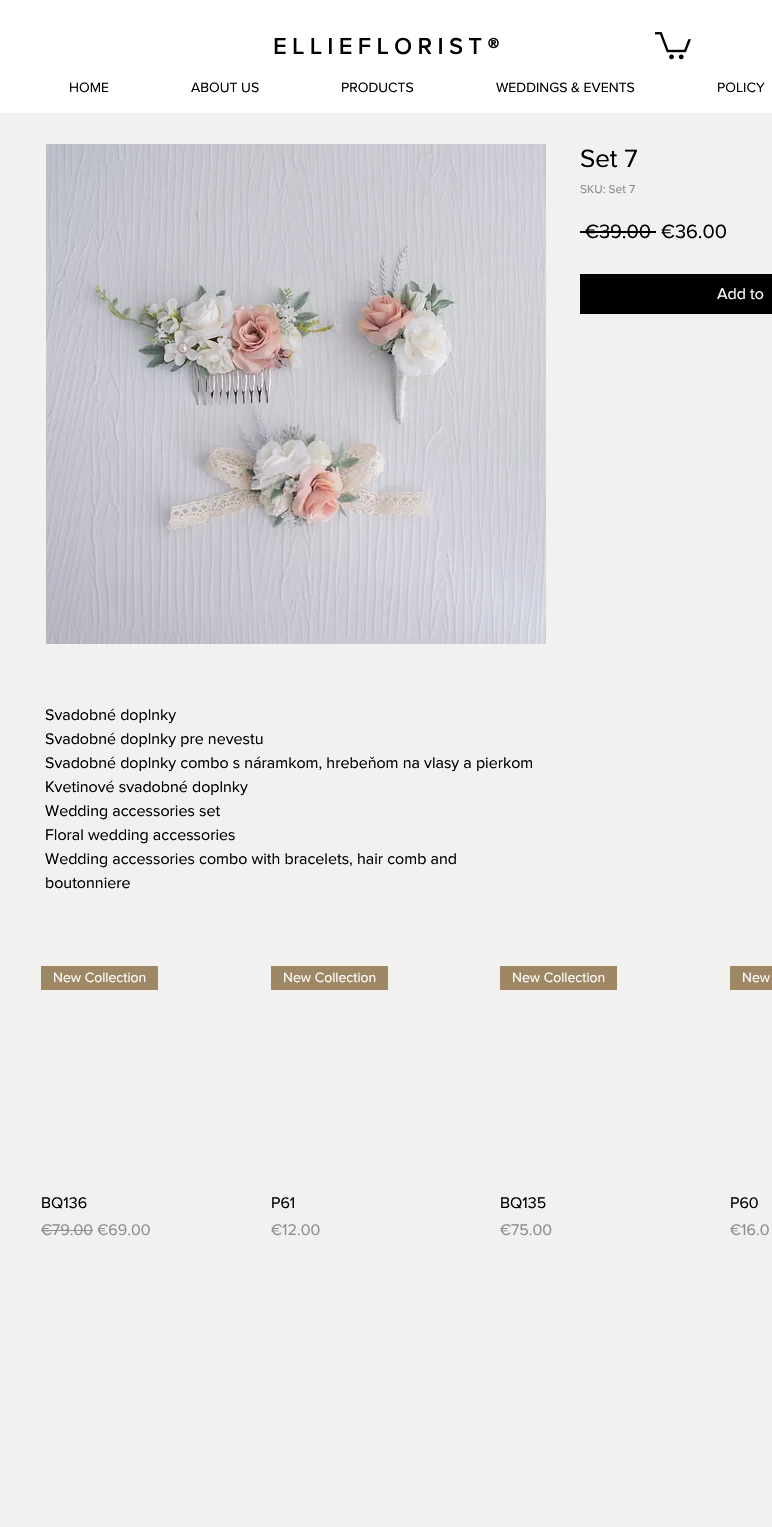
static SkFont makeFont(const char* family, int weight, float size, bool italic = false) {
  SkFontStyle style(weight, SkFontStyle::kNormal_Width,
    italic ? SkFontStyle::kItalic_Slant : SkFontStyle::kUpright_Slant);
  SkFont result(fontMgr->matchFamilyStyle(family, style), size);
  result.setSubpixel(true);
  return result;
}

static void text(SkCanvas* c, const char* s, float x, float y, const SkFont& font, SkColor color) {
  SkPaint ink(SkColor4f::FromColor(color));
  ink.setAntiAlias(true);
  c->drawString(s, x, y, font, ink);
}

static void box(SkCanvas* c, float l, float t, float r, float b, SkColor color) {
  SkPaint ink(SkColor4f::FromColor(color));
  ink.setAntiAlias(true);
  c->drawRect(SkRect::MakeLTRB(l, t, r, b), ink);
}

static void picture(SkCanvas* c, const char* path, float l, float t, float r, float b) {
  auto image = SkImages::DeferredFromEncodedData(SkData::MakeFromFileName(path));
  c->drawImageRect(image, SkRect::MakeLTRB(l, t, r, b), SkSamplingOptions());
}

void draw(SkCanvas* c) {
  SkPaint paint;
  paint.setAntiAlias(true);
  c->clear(0xfff2f1f0);
  box(c, 0, 0, 772, 113, 0xffffffff);
  SkFont face1 = makeFont("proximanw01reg", 700, 23);
  text(c, "E L L I E F L O R I S T ®", 273, 54, face1, 0xff000000);
  picture(c, "img_01.png", 655, 32, 691, 60);
  SkFont face2 = makeFont("proximanw01reg", 400, 14);
  text(c, "HOME", 69, 92, face2, 0xff000000);
  text(c, "ABOUT US", 191, 92, face2, 0xff000000);
  text(c, "PRODUCTS", 341, 92, face2, 0xff000000);
  text(c, "WEDDINGS & EVENTS", 496, 92, face2, 0xff000000);
  text(c, "POLICY", 717, 92, face2, 0xff000000);
  SkFont face3 = makeFont("proximanw01reg", 400, 26);
  text(c, "Set 7", 580, 167, face3, 0xff000000);
  SkFont face4 = makeFont("proximanw01reg", 400, 12);
  text(c, "SKU: Set 7", 580, 193, face4, 0xff8e8c8b);
  SkFont face5 = makeFont("proximanw01reg", 400, 20);
  text(c, "€39.00", 585, 238, face5, 0xff000000);
  box(c, 580, 231, 656, 233, 0xff000000);
  text(c, "€36.00", 661, 238, face5, 0xff000000);
  box(c, 580, 274, 772, 314, 0xff000000);
  SkFont face6 = makeFont("proximanw01reg", 400, 16);
  text(c, "Add to", 717, 299, face6, 0xffffffff);
  picture(c, "img_02.png", 46, 144, 546, 644);
  text(c, "Svadobné doplnky", 45, 720, face6, 0xff000000);
  text(c, "Svadobné doplnky pre nevestu", 45, 744, face6, 0xff000000);
  text(c, "Svadobné doplnky combo s náramkom, hrebeňom na vlasy a pierkom", 45, 768, face6, 0xff000000);
  text(c, "Kvetinové svadobné doplnky", 45, 792, face6, 0xff000000);
  text(c, "Wedding accessories set", 45, 816, face6, 0xff000000);
  text(c, "Floral wedding accessories", 45, 840, face6, 0xff000000);
  text(c, "Wedding accessories combo with bracelets, hair comb and", 45, 864, face6, 0xff000000);
  text(c, "boutonniere", 45, 888, face6, 0xff000000);
  box(c, 41, 966, 158, 990, 0xff9e8765);
  text(c, "New Collection", 53, 982, face2, 0xffffffff);
  text(c, "BQ136", 41, 1208, face6, 0xff000000);
  text(c, "€79.00 €69.00", 41, 1235, face6, 0xff8e8c8b);
  box(c, 41, 1230, 93, 1231, 0xff8e8c8b);
  box(c, 271, 966, 388, 990, 0xff9e8765);
  text(c, "New Collection", 283, 982, face2, 0xffffffff);
  text(c, "P61", 271, 1208, face6, 0xff000000);
  text(c, "€12.00", 271, 1235, face6, 0xff8e8c8b);
  box(c, 500, 966, 617, 990, 0xff9e8765);
  text(c, "New Collection", 512, 982, face2, 0xffffffff);
  text(c, "BQ135", 500, 1208, face6, 0xff000000);
  text(c, "€75.00", 500, 1235, face6, 0xff8e8c8b);
  box(c, 730, 966, 772, 990, 0xff9e8765);
  text(c, "New", 742, 982, face2, 0xffffffff);
  text(c, "P60", 730, 1208, face6, 0xff000000);
  text(c, "€16.0", 730, 1235, face6, 0xff8e8c8b);
}
